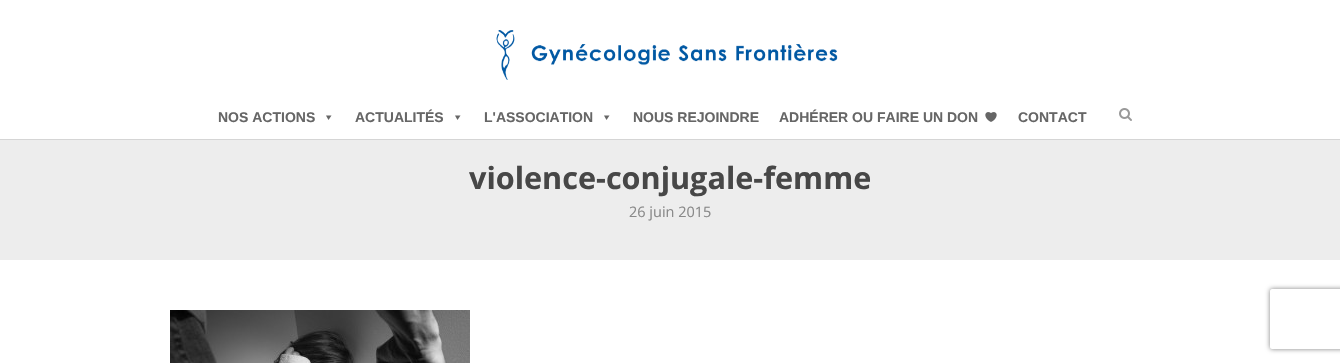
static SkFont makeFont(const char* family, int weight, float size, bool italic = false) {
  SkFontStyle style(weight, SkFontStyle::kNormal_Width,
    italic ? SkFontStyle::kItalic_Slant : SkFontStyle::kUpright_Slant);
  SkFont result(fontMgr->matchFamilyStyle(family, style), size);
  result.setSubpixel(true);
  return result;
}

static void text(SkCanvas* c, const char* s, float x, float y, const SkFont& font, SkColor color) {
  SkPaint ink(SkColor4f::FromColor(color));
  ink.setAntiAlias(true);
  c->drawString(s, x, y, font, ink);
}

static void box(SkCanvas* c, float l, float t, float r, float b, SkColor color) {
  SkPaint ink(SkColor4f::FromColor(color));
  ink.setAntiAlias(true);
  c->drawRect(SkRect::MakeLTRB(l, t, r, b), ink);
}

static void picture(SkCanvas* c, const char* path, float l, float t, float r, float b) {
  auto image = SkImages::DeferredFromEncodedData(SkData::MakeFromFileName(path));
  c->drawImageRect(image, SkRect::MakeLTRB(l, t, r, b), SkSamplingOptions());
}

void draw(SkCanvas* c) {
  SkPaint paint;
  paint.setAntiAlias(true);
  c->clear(0xffffffff);
  box(c, 0, 139, 1340, 140, 0xffd5d5d5);
  picture(c, "img_01.png", 496, 30, 838, 80);
  SkFont face1 = makeFont("Liberation Sans", 700, 14);
  text(c, "NOS ACTIONS", 218, 122, face1, 0xff666666);
  paint.setColor(0xff666666);
  c->drawPath(SkPathBuilder().moveTo(331.5f, 115.5f).lineTo(328.5f, 120).lineTo(326, 115.5f).close().detach(), paint);
  text(c, "ACTUALITÉS", 355, 122, face1, 0xff666666);
  c->drawPath(SkPathBuilder().moveTo(460.5f, 115.5f).lineTo(457.5f, 120).lineTo(455, 115.5f).close().detach(), paint);
  text(c, "L'ASSOCIATION", 484, 122, face1, 0xff666666);
  c->drawPath(SkPathBuilder().moveTo(609.5f, 115.5f).lineTo(606.5f, 120).lineTo(604, 115.5f).close().detach(), paint);
  text(c, "NOUS REJOINDRE", 633, 122, face1, 0xff666666);
  text(c, "ADHÉRER OU FAIRE UN DON", 779, 122, face1, 0xff666666);
  picture(c, "img_02.png", 985, 112, 997, 122);
  text(c, "CONTACT", 1018, 122, face1, 0xff666666);
  picture(c, "img_03.png", 1119, 108, 1132, 121);
  box(c, 0, 140, 1340, 260, 0xffededed);
  SkFont face2 = makeFont("Open Sans", 700, 30.6f);
  text(c, "violence-conjugale-femme", 469, 189, face2, 0xff474747);
  SkFont face3 = makeFont("Open Sans", 400, 14.5f);
  text(c, "26 juin 2015", 629, 217, face3, 0xff898989);
  picture(c, "img_04.png", 170, 310, 470, 363);
  c->save();
  c->clipPath(SkPathBuilder(SkPathFillType::kEvenOdd).moveTo(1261, 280).lineTo(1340, 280).lineTo(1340, 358).lineTo(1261, 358).close().moveTo(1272, 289).lineTo(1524, 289).cubicTo(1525, 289, 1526, 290, 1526, 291).lineTo(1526, 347).cubicTo(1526, 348, 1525, 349, 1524, 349).lineTo(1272, 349).cubicTo(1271, 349, 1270, 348, 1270, 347).lineTo(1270, 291).cubicTo(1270, 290, 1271, 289, 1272, 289).close().detach(), true);
  paint.setColor(0xff808080);
  paint.setMaskFilter(SkMaskFilter::MakeBlur(kNormal_SkBlurStyle, 2.5f));
  c->drawRoundRect(SkRect::MakeLTRB(1270, 289, 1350, 349), 2, 2, paint);
  paint.setMaskFilter(nullptr);
  c->restore();
}
